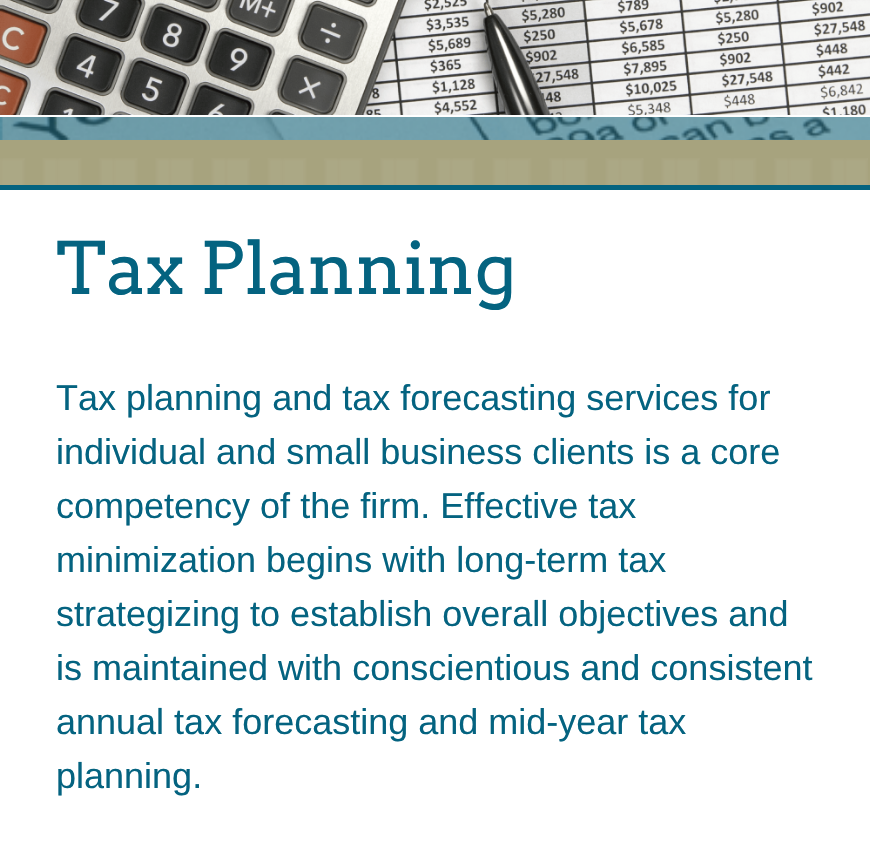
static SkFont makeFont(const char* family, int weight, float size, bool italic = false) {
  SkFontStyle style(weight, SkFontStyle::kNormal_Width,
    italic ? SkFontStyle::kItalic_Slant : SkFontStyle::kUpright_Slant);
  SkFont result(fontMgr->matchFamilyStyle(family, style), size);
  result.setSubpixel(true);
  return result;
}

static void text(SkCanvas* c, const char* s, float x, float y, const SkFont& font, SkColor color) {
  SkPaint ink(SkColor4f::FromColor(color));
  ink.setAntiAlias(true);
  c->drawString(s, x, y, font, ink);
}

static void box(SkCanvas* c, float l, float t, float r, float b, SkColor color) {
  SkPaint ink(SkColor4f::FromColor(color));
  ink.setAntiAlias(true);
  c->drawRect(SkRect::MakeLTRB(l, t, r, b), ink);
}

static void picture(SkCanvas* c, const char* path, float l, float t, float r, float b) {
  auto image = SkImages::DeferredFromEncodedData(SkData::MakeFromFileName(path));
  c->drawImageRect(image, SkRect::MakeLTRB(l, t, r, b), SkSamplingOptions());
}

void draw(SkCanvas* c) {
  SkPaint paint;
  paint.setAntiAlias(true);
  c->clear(0xff046380);
  picture(c, "img_01.png", 0, 117, 870, 140);
  box(c, 0, 115, 870, 117, 0xffffffff);
  picture(c, "img_02.png", 0, 0, 870, 115);
  box(c, 0, 140, 870, 185, 0xffa7a37e);
  picture(c, "img_03.png", 0, 158, 868, 185);
  box(c, 0, 190, 870, 843, 0xffffffff);
  SkFont face1 = makeFont("Arvo", 400, 72);
  text(c, "Tax Planning", 56, 294, face1, 0xff046380);
  SkFont face2 = makeFont("Liberation Sans", 400, 36);
  text(c, "Tax planning and tax forecasting services for", 56, 410, face2, 0xff046380);
  text(c, "individual and small business clients is a core", 56, 464, face2, 0xff046380);
  text(c, "competency of the firm. Effective tax", 56, 518, face2, 0xff046380);
  text(c, "minimization begins with long-term tax", 56, 572, face2, 0xff046380);
  text(c, "strategizing to establish overall objectives and", 56, 626, face2, 0xff046380);
  text(c, "is maintained with conscientious and consistent", 56, 680, face2, 0xff046380);
  text(c, "annual tax forecasting and mid-year tax", 56, 734, face2, 0xff046380);
  text(c, "planning.", 56, 788, face2, 0xff046380);
}
